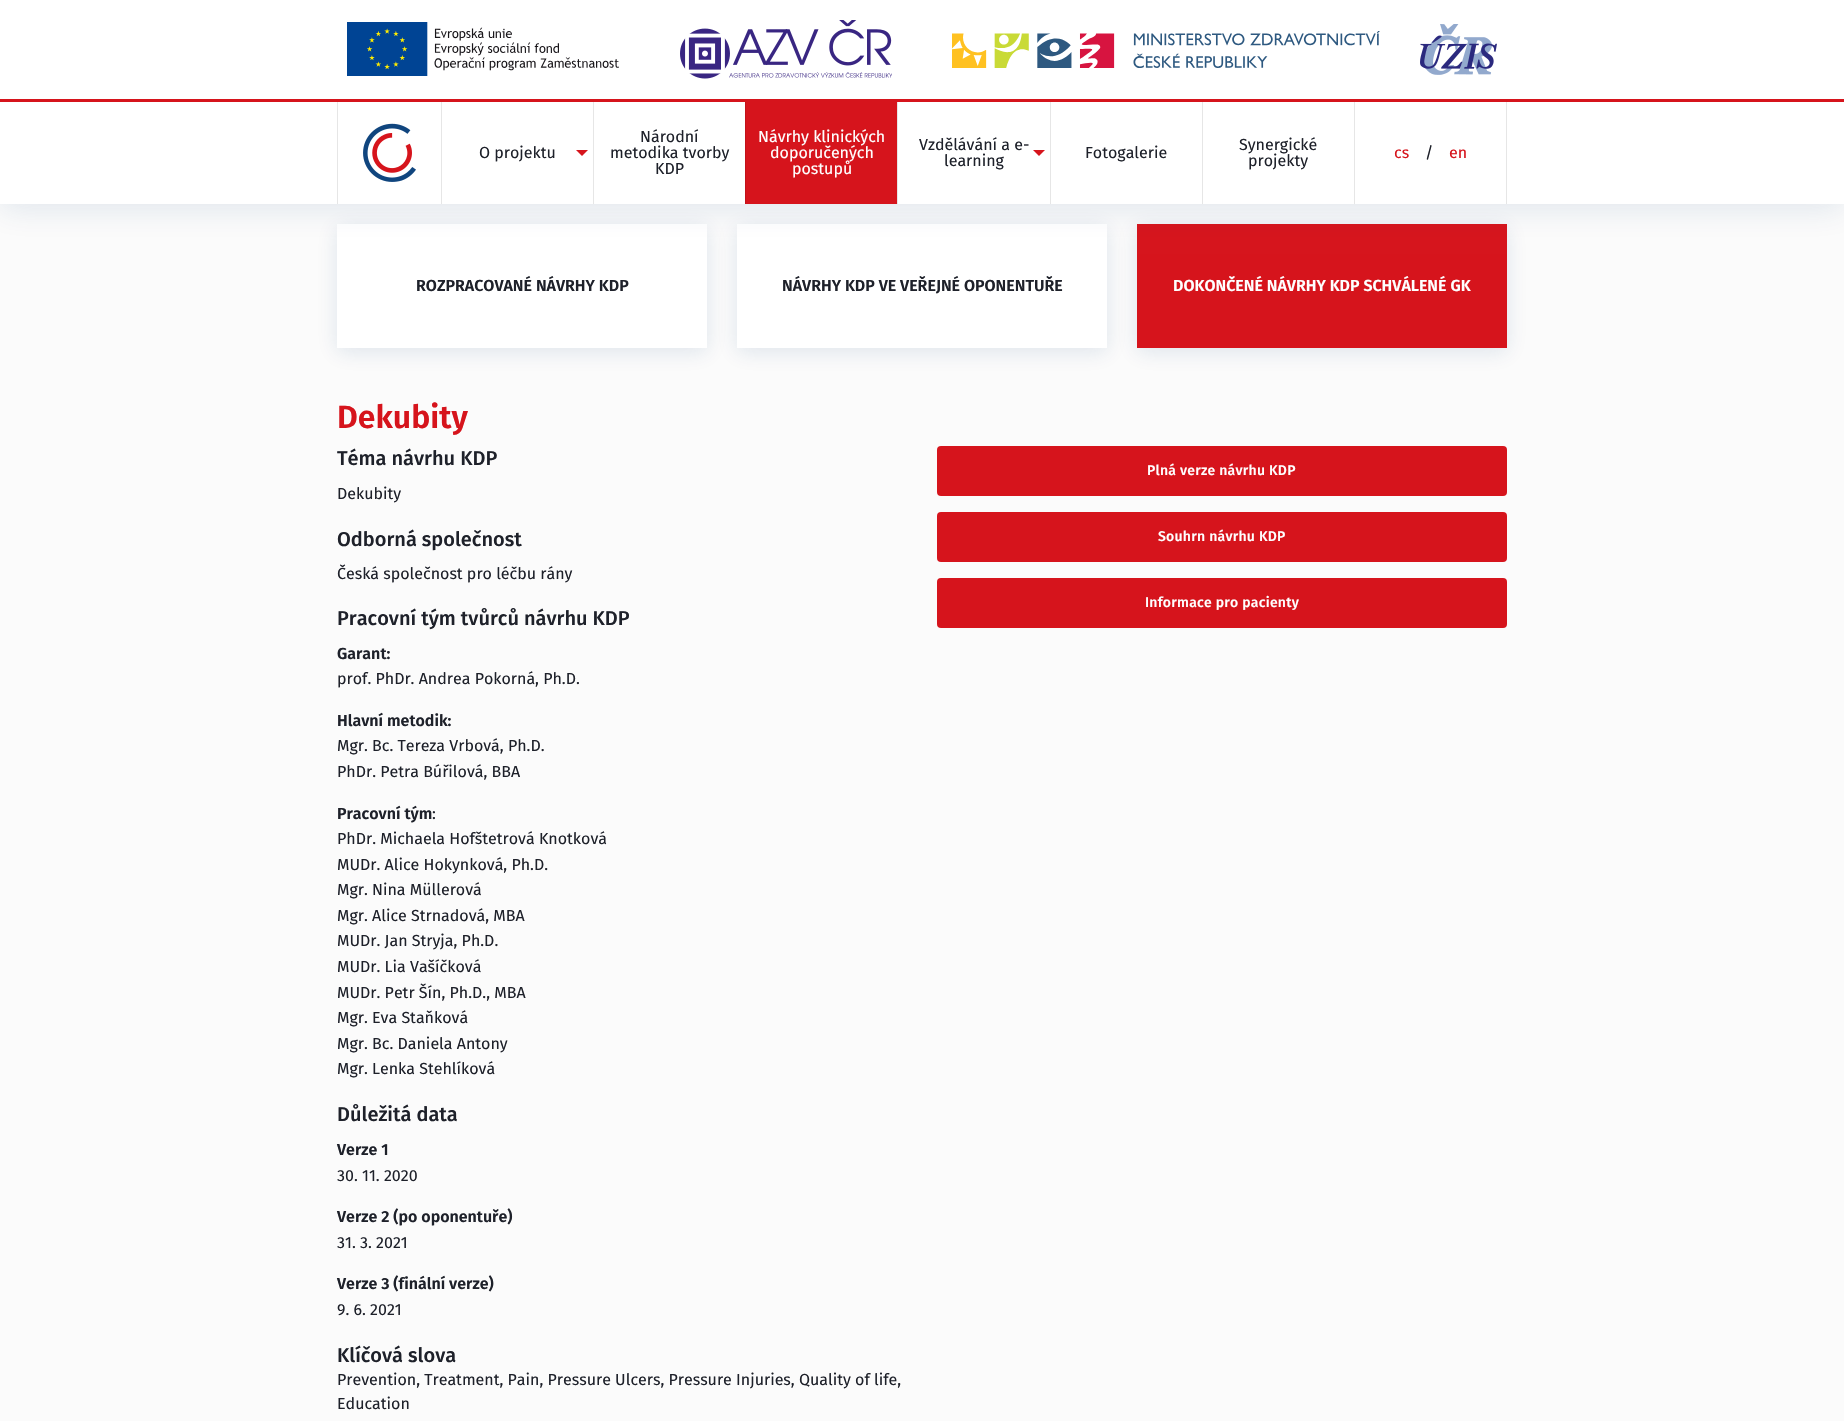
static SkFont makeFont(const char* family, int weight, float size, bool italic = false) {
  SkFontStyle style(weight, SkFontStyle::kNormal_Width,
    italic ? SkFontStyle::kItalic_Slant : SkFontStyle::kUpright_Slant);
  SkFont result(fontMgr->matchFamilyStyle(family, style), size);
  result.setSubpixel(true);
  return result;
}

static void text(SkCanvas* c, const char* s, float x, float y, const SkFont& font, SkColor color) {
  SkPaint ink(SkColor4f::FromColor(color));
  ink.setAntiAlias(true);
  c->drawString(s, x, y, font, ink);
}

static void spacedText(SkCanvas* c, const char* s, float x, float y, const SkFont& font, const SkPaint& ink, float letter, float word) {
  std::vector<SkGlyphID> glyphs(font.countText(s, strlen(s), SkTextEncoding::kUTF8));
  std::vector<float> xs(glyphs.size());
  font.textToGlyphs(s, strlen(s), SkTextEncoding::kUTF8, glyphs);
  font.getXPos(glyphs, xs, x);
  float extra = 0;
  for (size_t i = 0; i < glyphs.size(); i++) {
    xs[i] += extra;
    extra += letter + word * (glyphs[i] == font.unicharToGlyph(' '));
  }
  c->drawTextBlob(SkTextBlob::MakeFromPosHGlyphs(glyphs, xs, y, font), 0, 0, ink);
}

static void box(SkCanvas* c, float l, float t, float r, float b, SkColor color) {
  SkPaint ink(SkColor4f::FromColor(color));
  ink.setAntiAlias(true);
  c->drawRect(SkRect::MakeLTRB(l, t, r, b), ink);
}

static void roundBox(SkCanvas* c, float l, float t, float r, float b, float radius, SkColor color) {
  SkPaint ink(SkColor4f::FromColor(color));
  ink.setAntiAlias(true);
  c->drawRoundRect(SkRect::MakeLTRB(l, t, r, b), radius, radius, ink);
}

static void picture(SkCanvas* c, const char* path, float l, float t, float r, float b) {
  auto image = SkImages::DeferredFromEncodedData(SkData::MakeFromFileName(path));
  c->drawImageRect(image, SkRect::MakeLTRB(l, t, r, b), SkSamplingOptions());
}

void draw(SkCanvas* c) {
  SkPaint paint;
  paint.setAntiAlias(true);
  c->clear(0xfffbfbfb);
  paint.setColor(0x1f10457e);
  paint.setMaskFilter(SkMaskFilter::MakeBlur(kNormal_SkBlurStyle, 10));
  c->drawRect(SkRect::MakeLTRB(337, 228, 707, 352), paint);
  paint.setMaskFilter(nullptr);
  box(c, 337, 224, 707, 348, 0xffffffff);
  paint.setMaskFilter(SkMaskFilter::MakeBlur(kNormal_SkBlurStyle, 10));
  c->drawRect(SkRect::MakeLTRB(737, 228, 1107, 352), paint);
  paint.setMaskFilter(nullptr);
  box(c, 737, 224, 1107, 348, 0xffffffff);
  paint.setMaskFilter(SkMaskFilter::MakeBlur(kNormal_SkBlurStyle, 10));
  c->drawRect(SkRect::MakeLTRB(1137, 228, 1507, 352), paint);
  paint.setMaskFilter(nullptr);
  box(c, 1137, 224, 1507, 348, 0xffd6141c);
  paint.setMaskFilter(SkMaskFilter::MakeBlur(kNormal_SkBlurStyle, 15.5f));
  c->drawRect(SkRect::MakeLTRB(0, 106, 1844, 208), paint);
  paint.setMaskFilter(nullptr);
  box(c, 0, 0, 1844, 99, 0xffffffff);
  box(c, 0, 99, 1844, 102, 0xffd6141c);
  picture(c, "img_01.png", 347, 22, 619, 76);
  picture(c, "img_02.png", 680, 20, 892, 79);
  picture(c, "img_03.png", 952, 31, 1380, 68);
  picture(c, "img_04.png", 1420, 24, 1497, 75);
  box(c, 0, 102, 1844, 204, 0xffffffff);
  box(c, 1506, 102, 1507, 204, 0xffe6e6e6);
  box(c, 337, 102, 338, 204, 0xffe6e6e6);
  picture(c, "img_05.png", 363, 123, 416, 182);
  box(c, 441, 102, 442, 204, 0xffe6e6e6);
  SkFont face1 = makeFont("Fira Sans", 400, 16);
  text(c, "O projektu", 479, 158, face1, 0xff1e212a);
  paint.setColor(0xffd6141c);
  c->drawPath(SkPathBuilder().moveTo(576, 150).lineTo(588, 150).lineTo(582, 156).close().detach(), paint);
  box(c, 593, 102, 594, 204, 0xffe6e6e6);
  text(c, "Národní", 640, 142, face1, 0xff1e212a);
  text(c, "metodika tvorby", 610, 158, face1, 0xff1e212a);
  text(c, "KDP", 655, 174, face1, 0xff1e212a);
  box(c, 746, 102, 897, 204, 0xffd6141c);
  box(c, 745, 102, 746, 204, 0xffc11219);
  text(c, "Návrhy klinických", 758, 142, face1, 0xffffffff);
  text(c, "doporučených", 770, 158, face1, 0xffffffff);
  text(c, "postupů", 792, 174, face1, 0xffffffff);
  box(c, 897, 102, 898, 204, 0xffe6e6e6);
  text(c, "Vzdělávání a e-", 919, 150, face1, 0xff1e212a);
  text(c, "learning", 944, 166, face1, 0xff1e212a);
  c->drawPath(SkPathBuilder().moveTo(1033, 150).lineTo(1045, 150).lineTo(1039, 156).close().detach(), paint);
  box(c, 1050, 102, 1051, 204, 0xffe6e6e6);
  text(c, "Fotogalerie", 1085, 158, face1, 0xff1e212a);
  box(c, 1202, 102, 1203, 204, 0xffe6e6e6);
  text(c, "Synergické", 1239, 150, face1, 0xff1e212a);
  text(c, "projekty", 1248, 166, face1, 0xff1e212a);
  box(c, 1354, 102, 1355, 204, 0xffe6e6e6);
  text(c, "cs", 1394, 158, face1, 0xffd6141c);
  text(c, "/", 1425, 158, face1, 0xff1e212a);
  text(c, "en", 1449, 158, face1, 0xffd6141c);
  SkFont face2 = makeFont("Fira Sans", 600, 16);
  text(c, "ROZPRACOVANÉ NÁVRHY KDP", 416, 291, face2, 0xff1e212a);
  text(c, "NÁVRHY KDP VE VEŘEJNÉ OPONENTUŘE", 782, 291, face2, 0xff1e212a);
  text(c, "DOKONČENÉ NÁVRHY KDP SCHVÁLENÉ GK", 1173, 291, face2, 0xffffffff);
  SkFont face3 = makeFont("Fira Sans", 600, 32);
  text(c, "Dekubity", 337, 428, face3, 0xffd6141c);
  SkFont face4 = makeFont("Fira Sans", 500, 20);
  text(c, "Téma návrhu KDP", 337, 465, face4, 0xff1e212a);
  text(c, "Dekubity", 337, 499, face1, 0xff1e212a);
  text(c, "Odborná společnost", 337, 546, face4, 0xff1e212a);
  text(c, "Česká společnost pro léčbu rány", 337, 579, face1, 0xff1e212a);
  text(c, "Pracovní tým tvůrců návrhu KDP", 337, 625, face4, 0xff1e212a);
  text(c, "Garant:", 337, 659, face2, 0xff1e212a);
  text(c, "prof. PhDr. Andrea Pokorná, Ph.D.", 337, 684, face1, 0xff1e212a);
  text(c, "Hlavní metodik:", 337, 726, face2, 0xff1e212a);
  text(c, "Mgr. Bc. Tereza Vrbová, Ph.D.", 337, 751, face1, 0xff1e212a);
  text(c, "PhDr. Petra Búřilová, BBA", 337, 777, face1, 0xff1e212a);
  text(c, "Pracovní tým", 337, 819, face2, 0xff1e212a);
  text(c, ":", 432, 819, face1, 0xff1e212a);
  text(c, "PhDr. Michaela Hofštetrová Knotková", 337, 844, face1, 0xff1e212a);
  text(c, "MUDr. Alice Hokynková, Ph.D.", 337, 870, face1, 0xff1e212a);
  text(c, "Mgr. Nina Müllerová", 337, 895, face1, 0xff1e212a);
  text(c, "Mgr. Alice Strnadová, MBA", 337, 921, face1, 0xff1e212a);
  text(c, "MUDr. Jan Stryja, Ph.D.", 337, 946, face1, 0xff1e212a);
  text(c, "MUDr. Lia Vašíčková", 337, 972, face1, 0xff1e212a);
  text(c, "MUDr. Petr Šín, Ph.D., MBA", 337, 998, face1, 0xff1e212a);
  text(c, "Mgr. Eva Staňková", 337, 1023, face1, 0xff1e212a);
  text(c, "Mgr. Bc. Daniela Antony", 337, 1049, face1, 0xff1e212a);
  text(c, "Mgr. Lenka Stehlíková", 337, 1074, face1, 0xff1e212a);
  text(c, "Důležitá data", 337, 1121, face4, 0xff1e212a);
  text(c, "Verze 1", 337, 1155, face2, 0xff1e212a);
  text(c, "30. 11. 2020", 337, 1181, face1, 0xff1e212a);
  text(c, "Verze 2 (po oponentuře)", 337, 1222, face2, 0xff1e212a);
  text(c, "31. 3. 2021", 337, 1248, face1, 0xff1e212a);
  text(c, "Verze 3 (finální verze)", 337, 1289, face2, 0xff1e212a);
  text(c, "9. 6. 2021", 337, 1315, face1, 0xff1e212a);
  text(c, "Klíčová slova", 337, 1362, face4, 0xff1e212a);
  text(c, "Prevention, Treatment, Pain, Pressure Ulcers, Pressure Injuries, Quality of life,", 337, 1385, face1, 0xff1e212a);
  text(c, "Education", 337, 1409, face1, 0xff1e212a);
  roundBox(c, 937, 446, 1507, 496, 4, 0xffd6141c);
  SkFont face5 = makeFont("Fira Sans", 500, 14);
  paint.setColor(0xffffffff);
  spacedText(c, "Plná verze návrhu KDP", 1147, 475, face5, paint, 0.25f, 0);
  roundBox(c, 937, 512, 1507, 562, 4, 0xffd6141c);
  spacedText(c, "Souhrn návrhu KDP", 1158, 541, face5, paint, 0.25f, 0);
  roundBox(c, 937, 578, 1507, 628, 4, 0xffd6141c);
  spacedText(c, "Informace pro pacienty", 1145, 607, face5, paint, 0.25f, 0);
}
